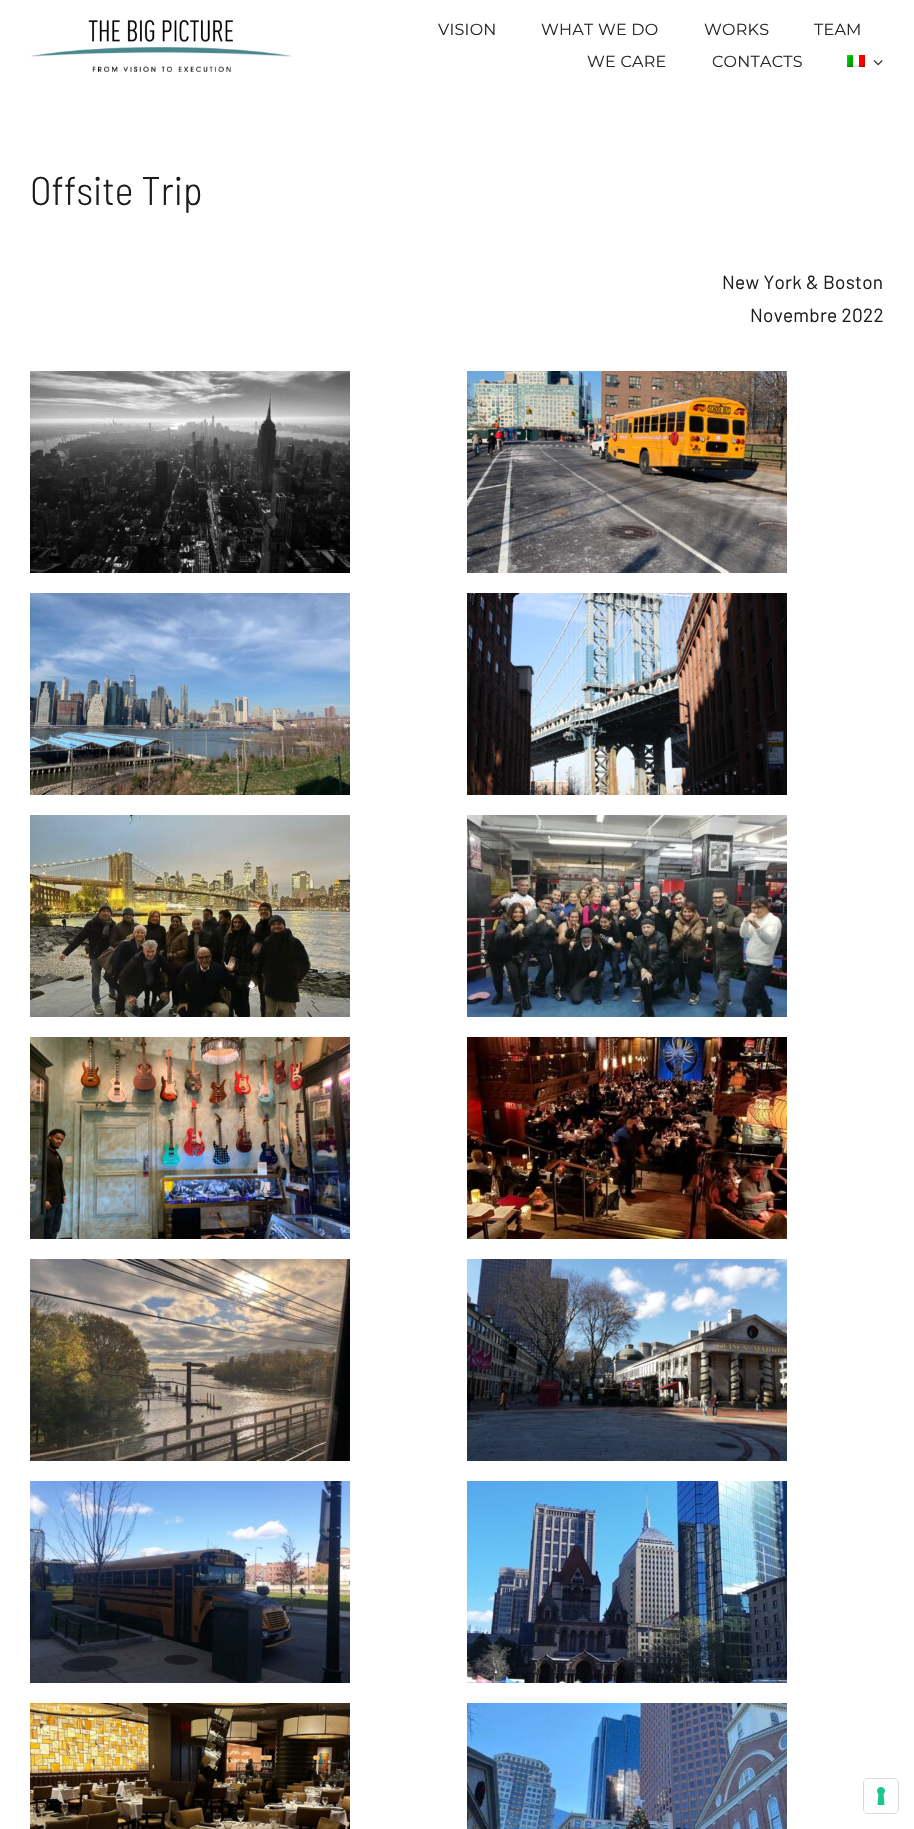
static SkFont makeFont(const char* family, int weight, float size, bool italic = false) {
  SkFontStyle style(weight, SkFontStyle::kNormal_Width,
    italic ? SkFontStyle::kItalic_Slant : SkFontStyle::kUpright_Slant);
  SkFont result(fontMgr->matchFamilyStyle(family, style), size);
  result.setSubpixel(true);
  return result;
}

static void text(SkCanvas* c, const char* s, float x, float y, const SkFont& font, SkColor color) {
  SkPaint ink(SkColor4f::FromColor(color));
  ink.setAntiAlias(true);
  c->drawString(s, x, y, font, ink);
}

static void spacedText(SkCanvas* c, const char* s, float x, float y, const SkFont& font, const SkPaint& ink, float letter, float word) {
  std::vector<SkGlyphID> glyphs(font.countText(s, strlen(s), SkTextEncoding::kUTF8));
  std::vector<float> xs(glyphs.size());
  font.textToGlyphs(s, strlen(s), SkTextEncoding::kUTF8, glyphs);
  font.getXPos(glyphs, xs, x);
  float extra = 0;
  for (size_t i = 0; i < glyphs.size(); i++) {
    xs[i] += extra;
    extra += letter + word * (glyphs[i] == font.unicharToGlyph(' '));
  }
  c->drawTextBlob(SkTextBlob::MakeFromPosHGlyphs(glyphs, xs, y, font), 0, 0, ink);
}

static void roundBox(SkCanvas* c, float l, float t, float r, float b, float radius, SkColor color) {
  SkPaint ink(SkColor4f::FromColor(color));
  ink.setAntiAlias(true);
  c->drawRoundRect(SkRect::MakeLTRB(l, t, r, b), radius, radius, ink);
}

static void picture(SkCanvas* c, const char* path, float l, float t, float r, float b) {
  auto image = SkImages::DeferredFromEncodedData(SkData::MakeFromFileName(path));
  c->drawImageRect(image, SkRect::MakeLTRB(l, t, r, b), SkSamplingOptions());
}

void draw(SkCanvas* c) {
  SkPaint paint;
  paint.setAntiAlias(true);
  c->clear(0xffffffff);
  picture(c, "img_01.png", 30, 20, 292, 72);
  SkFont face1 = makeFont("Montserrat", 100, 16);
  paint.setColor(0xff292929);
  spacedText(c, "VISION", 438, 35, face1, paint, 0.25f, 0);
  spacedText(c, "WHAT WE DO", 541, 35, face1, paint, 0.25f, 0);
  spacedText(c, "WORKS", 704, 35, face1, paint, 0.25f, 0);
  spacedText(c, "TEAM", 814, 35, face1, paint, 0.25f, 0);
  spacedText(c, "WE CARE", 587, 67, face1, paint, 0.25f, 0);
  spacedText(c, "CONTACTS", 712, 67, face1, paint, 0.25f, 0);
  picture(c, "img_02.png", 847, 55, 865, 67);
  picture(c, "img_03.png", 873, 60, 883, 66);
  SkFont face2 = makeFont("Barlow Semi Condensed", 300, 40);
  text(c, "Offsite Trip", 30, 205, face2, 0xff1c1c1c);
  SkFont face3 = makeFont("Barlow", 400, 19);
  paint.setColor(0xff1c1c1c);
  spacedText(c, "New York & Boston", 722, 289, face3, paint, 0.25f, 0);
  spacedText(c, "Novembre 2022", 750, 322, face3, paint, 0.25f, 0);
  picture(c, "img_04.png", 30, 371, 350, 573);
  picture(c, "img_05.png", 467, 371, 787, 573);
  picture(c, "img_06.png", 30, 593, 350, 795);
  picture(c, "img_07.png", 467, 593, 787, 795);
  picture(c, "img_08.png", 30, 815, 350, 1017);
  picture(c, "img_09.png", 467, 815, 787, 1017);
  picture(c, "img_10.png", 30, 1037, 350, 1239);
  picture(c, "img_11.png", 467, 1037, 787, 1239);
  picture(c, "img_12.png", 30, 1259, 350, 1461);
  picture(c, "img_13.png", 467, 1259, 787, 1461);
  picture(c, "img_14.png", 30, 1481, 350, 1683);
  picture(c, "img_15.png", 467, 1481, 787, 1683);
  picture(c, "img_16.png", 30, 1703, 350, 1829);
  picture(c, "img_17.png", 467, 1703, 787, 1829);
  paint.setStyle(SkPaint::kStroke_Style);
  paint.setStrokeWidth(1);
  paint.setColor(0xffd9d9d9);
  c->drawRoundRect(SkRect::MakeLTRB(863.5f, 1778.5f, 898.5f, 1813.5f), 4.5f, 4.5f, paint);
  roundBox(c, 864, 1779, 898, 1813, 4, 0xffffffff);
  picture(c, "img_18.png", 877, 1787, 885, 1805);
}
